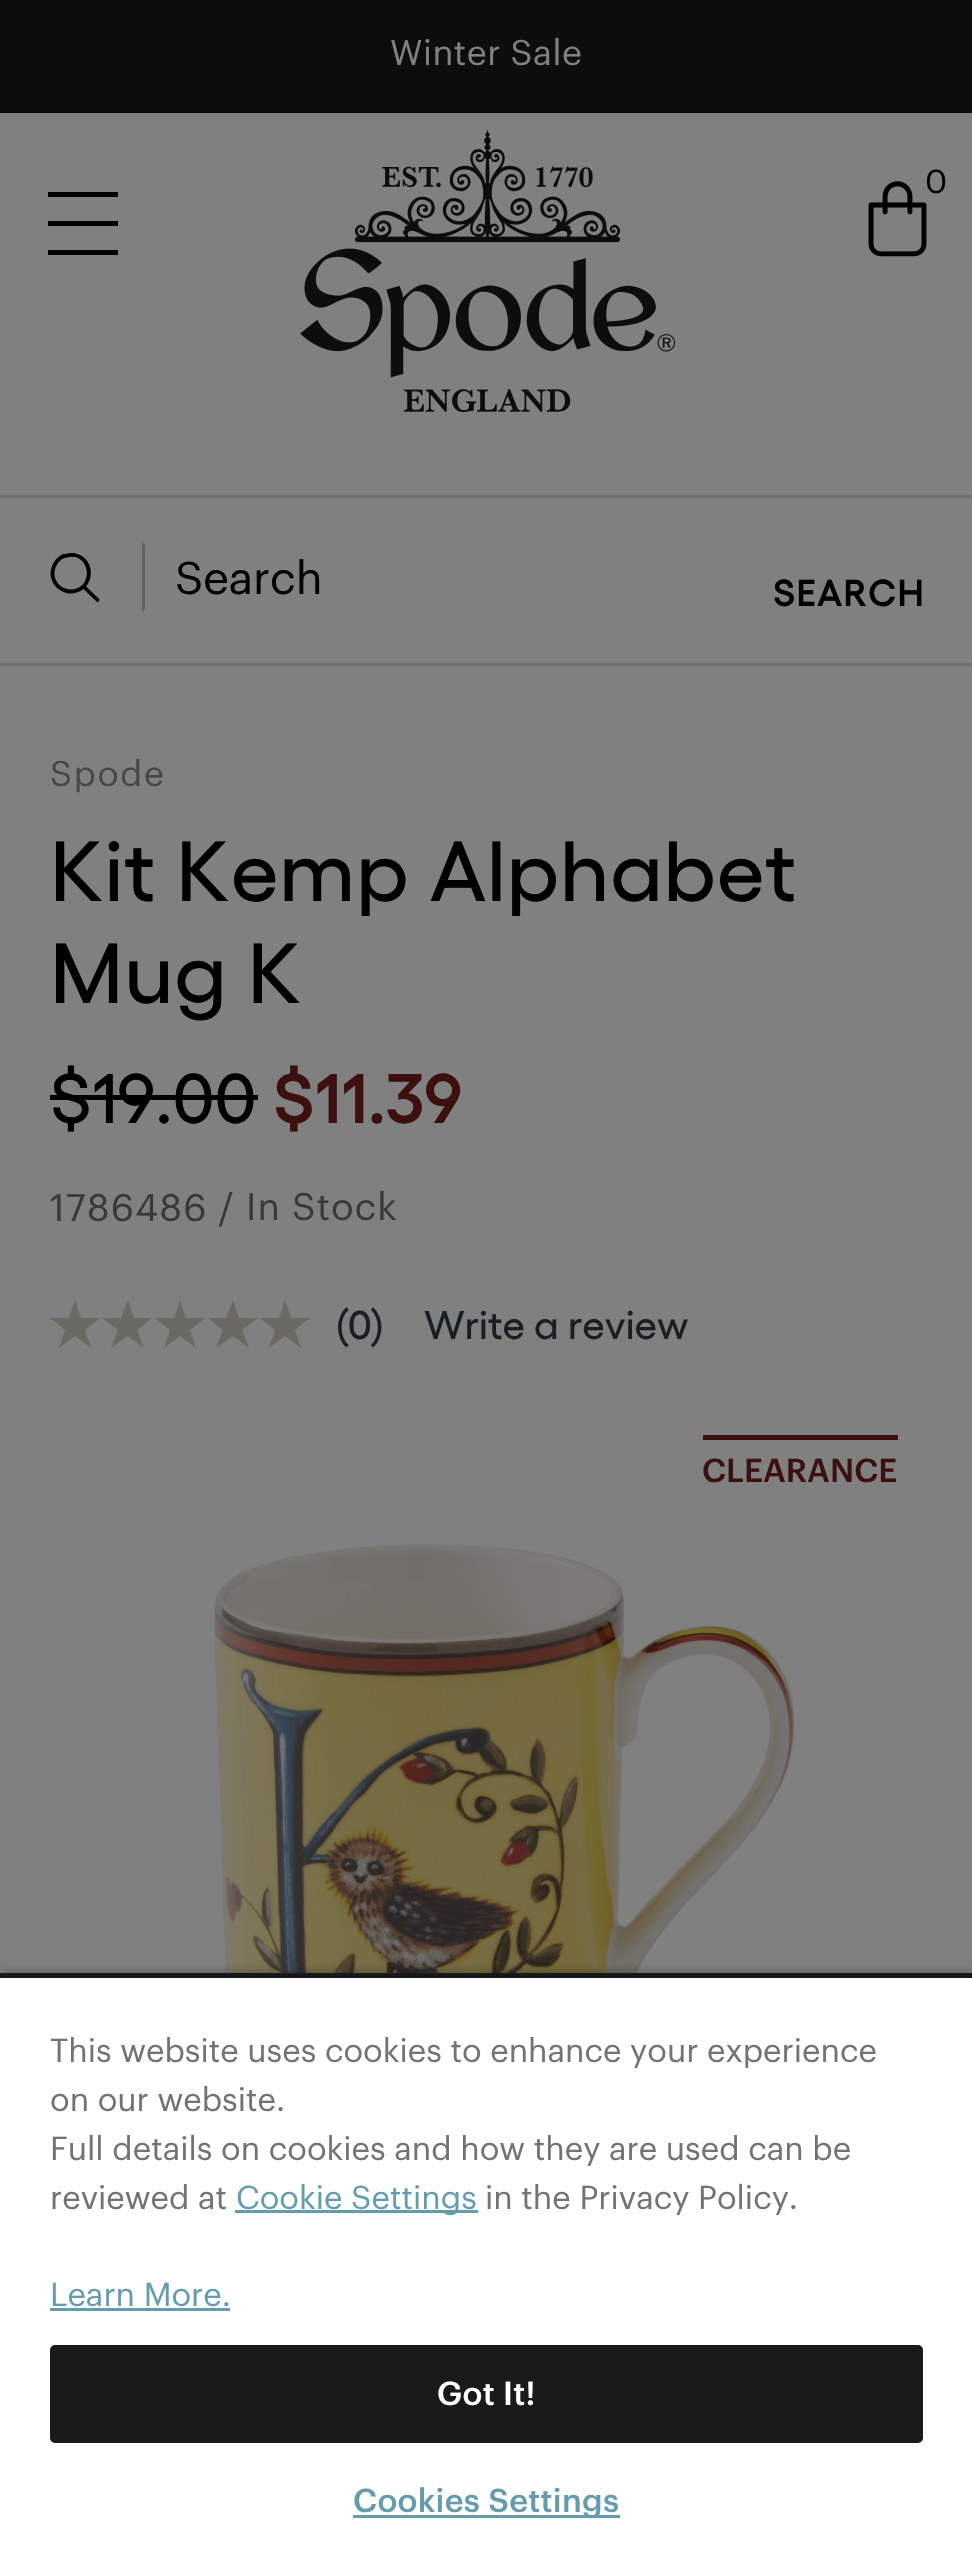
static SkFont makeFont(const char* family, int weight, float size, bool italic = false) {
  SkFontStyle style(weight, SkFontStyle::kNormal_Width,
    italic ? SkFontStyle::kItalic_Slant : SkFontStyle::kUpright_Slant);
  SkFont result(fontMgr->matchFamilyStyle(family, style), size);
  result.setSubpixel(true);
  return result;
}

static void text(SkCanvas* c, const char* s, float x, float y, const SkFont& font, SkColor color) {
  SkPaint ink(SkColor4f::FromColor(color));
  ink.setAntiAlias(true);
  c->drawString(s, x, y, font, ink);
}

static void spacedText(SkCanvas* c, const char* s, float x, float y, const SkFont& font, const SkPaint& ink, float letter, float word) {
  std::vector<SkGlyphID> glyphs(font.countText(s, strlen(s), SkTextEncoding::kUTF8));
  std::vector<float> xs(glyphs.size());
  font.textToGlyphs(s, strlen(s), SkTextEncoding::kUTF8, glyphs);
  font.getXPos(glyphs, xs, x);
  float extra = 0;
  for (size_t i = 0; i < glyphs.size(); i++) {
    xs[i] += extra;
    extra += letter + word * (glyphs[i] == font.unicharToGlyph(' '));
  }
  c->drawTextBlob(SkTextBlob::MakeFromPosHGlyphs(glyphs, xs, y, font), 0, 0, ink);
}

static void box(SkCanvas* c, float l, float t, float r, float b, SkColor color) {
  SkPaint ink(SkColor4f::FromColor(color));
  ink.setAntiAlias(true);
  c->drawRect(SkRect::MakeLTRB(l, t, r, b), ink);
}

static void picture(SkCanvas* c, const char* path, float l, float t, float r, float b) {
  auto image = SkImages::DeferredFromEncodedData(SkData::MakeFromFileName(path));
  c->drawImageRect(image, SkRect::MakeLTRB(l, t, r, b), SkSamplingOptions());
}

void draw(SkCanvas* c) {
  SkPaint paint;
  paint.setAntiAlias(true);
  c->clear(0xff808080);
  box(c, 0, 0, 972, 113, 0xff0d0d0d);
  SkFont face1 = makeFont("Graphik", 400, 35);
  paint.setColor(0xff808080);
  spacedText(c, "Winter Sale", 390, 65, face1, paint, 0.5f, 0);
  box(c, 0, 663, 972, 666, 0xff707070);
  picture(c, "img_01.png", 300, 130, 675, 413);
  box(c, 0, 495, 972, 498, 0xff707070);
  box(c, 48, 192, 118, 197, 0xff000000);
  box(c, 48, 221, 118, 226, 0xff000000);
  box(c, 48, 250, 118, 255, 0xff000000);
  picture(c, "img_02.png", 868, 181, 927, 257);
  SkFont face2 = makeFont("Graphik", 400, 32.5f);
  text(c, "0", 925, 193, face2, 0xff000000);
  paint.setStyle(SkPaint::kStroke_Style);
  paint.setStrokeWidth(3.8f);
  paint.setStrokeCap(SkPaint::kRound_Cap);
  paint.setStrokeJoin(SkPaint::kRound_Join);
  paint.setColor(0xff000000);
  c->drawPath(SkPathBuilder().moveTo(78, 590).cubicTo(94, 583, 92, 558.5f, 74.5f, 555).cubicTo(70.5f, 554.5f, 67, 555, 63.5f, 556.5f).lineTo(63.5f, 556).cubicTo(54.5f, 560.5f, 50, 571.5f, 54, 580.5f).cubicTo(58, 589.5f, 69, 594, 78, 590).close().moveTo(83.5f, 586.5f).lineTo(97.5f, 600).detach(), paint);
  paint.setStyle(SkPaint::kFill_Style);
  paint.setColor(0xff656565);
  c->drawPath(SkPathBuilder().moveTo(142, 612).lineTo(142, 542).lineTo(145, 545).lineTo(145, 610).close().detach(), paint);
  SkFont face3 = makeFont("Graphik", 400, 45);
  text(c, "Search", 175, 594, face3, 0xff000000);
  SkFont face4 = makeFont("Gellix", 600, 37.5f);
  paint.setColor(0xff000000);
  spacedText(c, "SEARCH", 773, 606, face4, paint, 1.1f, 0);
  paint.setColor(0xff474747);
  spacedText(c, "Spode", 50, 786, face1, paint, 1.75f, 0);
  SkFont face5 = makeFont("Gellix", 500, 85);
  paint.setColor(0xff000000);
  spacedText(c, "Kit Kemp Alphabet", 50, 901, face5, paint, 0.8f, 0);
  spacedText(c, "Mug K", 50, 1003, face5, paint, 0.8f, 0);
  SkFont face6 = makeFont("Gellix", 500, 70);
  text(c, "$19.00", 50, 1123, face6, 0xff000000);
  box(c, 50, 1095, 258, 1100, 0xff000000);
  SkFont face7 = makeFont("Gellix", 600, 70);
  text(c, "$11.39", 273, 1123, face7, 0xff3d1010);
  SkFont face8 = makeFont("Graphik", 400, 37.5f);
  paint.setColor(0xff393939);
  spacedText(c, "1786486 /", 50, 1221, face8, paint, 1.1f, 0);
  spacedText(c, "In Stock", 246, 1220, face8, paint, 1.1f, 0);
  {
    const SkColor colors[] = {0xff7f3f0a, 0xff6b6963};
    const float stops[] = {0, 0.01f};
    const SkPoint ends[] = {{50, 1300}, {100, 1300}};
    paint.setShader(SkGradientShader::MakeLinear(ends, colors, stops, 2, SkTileMode::kClamp));
    paint.setAlpha(255);
  }
  c->drawPath(SkPathBuilder().moveTo(100, 1318).lineTo(81, 1318).lineTo(75, 1300).lineTo(69, 1318).lineTo(50, 1318).lineTo(65, 1330).lineTo(59, 1348).lineTo(75, 1336).lineTo(91, 1348).lineTo(85, 1330).close().detach(), paint);
  {
    const SkColor colors[] = {0xff7f3f0a, 0xff6b6963};
    const float stops[] = {0, 0.01f};
    const SkPoint ends[] = {{103, 1300}, {153, 1300}};
    paint.setShader(SkGradientShader::MakeLinear(ends, colors, stops, 2, SkTileMode::kClamp));
    paint.setAlpha(255);
  }
  c->drawPath(SkPathBuilder().moveTo(152, 1318).lineTo(134, 1318).lineTo(128, 1300).lineTo(121, 1318).lineTo(102, 1318).lineTo(118, 1330).lineTo(111, 1348).lineTo(128, 1336).lineTo(144, 1348).lineTo(137, 1330).close().detach(), paint);
  {
    const SkColor colors[] = {0xff7f3f0a, 0xff6b6963};
    const float stops[] = {0, 0.01f};
    const SkPoint ends[] = {{155, 1300}, {205, 1300}};
    paint.setShader(SkGradientShader::MakeLinear(ends, colors, stops, 2, SkTileMode::kClamp));
    paint.setAlpha(255);
  }
  c->drawPath(SkPathBuilder().moveTo(205, 1318).lineTo(186, 1318).lineTo(180, 1300).lineTo(174, 1318).lineTo(155, 1318).lineTo(170, 1330).lineTo(164, 1348).lineTo(180, 1336).lineTo(196, 1348).lineTo(190, 1330).close().detach(), paint);
  {
    const SkColor colors[] = {0xff7f3f0a, 0xff6b6963};
    const float stops[] = {0, 0.01f};
    const SkPoint ends[] = {{208, 1300}, {258, 1300}};
    paint.setShader(SkGradientShader::MakeLinear(ends, colors, stops, 2, SkTileMode::kClamp));
    paint.setAlpha(255);
  }
  c->drawPath(SkPathBuilder().moveTo(258, 1318).lineTo(239, 1318).lineTo(233, 1300).lineTo(226, 1318).lineTo(208, 1318).lineTo(223, 1330).lineTo(216, 1348).lineTo(233, 1336).lineTo(249, 1348).lineTo(242, 1330).close().detach(), paint);
  {
    const SkColor colors[] = {0xff7f3f0a, 0xff6b6963};
    const float stops[] = {0, 0.01f};
    const SkPoint ends[] = {{260, 1300}, {310, 1300}};
    paint.setShader(SkGradientShader::MakeLinear(ends, colors, stops, 2, SkTileMode::kClamp));
    paint.setAlpha(255);
  }
  c->drawPath(SkPathBuilder().moveTo(310, 1318).lineTo(291, 1318).lineTo(285, 1300).lineTo(279, 1318).lineTo(260, 1318).lineTo(275, 1330).lineTo(269, 1348).lineTo(285, 1336).lineTo(301, 1348).lineTo(295, 1330).close().detach(), paint);
  SkFont face9 = makeFont("Gellix", 500, 40);
  text(c, "(0)", 335, 1339, face9, 0xff1a1f24);
  text(c, "Write a review", 424, 1339, face9, 0xff1a1f24);
  box(c, 703, 1435, 898, 1440, 0xff3d1010);
  SkFont face10 = makeFont("Graphik", 500, 32.5f);
  text(c, "CLEARANCE", 702, 1482, face10, 0xff3d1010);
  picture(c, "img_03.png", 214, 1544, 794, 1973);
  paint.setShader(nullptr);
  paint.setColor(0x59000000);
  paint.setMaskFilter(SkMaskFilter::MakeBlur(kNormal_SkBlurStyle, 5));
  c->drawRect(SkRect::MakeLTRB(0, 1973, 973, 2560), paint);
  paint.setMaskFilter(nullptr);
  box(c, 0, 1973, 972, 1978, 0xff1a1a1a);
  c->save();
  c->clipRect(SkRect::MakeLTRB(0, 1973, 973, 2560));
  paint.setColor(0x33000000);
  paint.setMaskFilter(SkMaskFilter::MakeBlur(kNormal_SkBlurStyle, 5));
  c->drawRect(SkRect::MakeLTRB(0, 1978, 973, 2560), paint);
  paint.setMaskFilter(nullptr);
  c->restore();
  box(c, 0, 1978, 972, 2559, 0xffffffff);
  text(c, "This website uses cookies to enhance your experience", 50, 2062, face2, 0xff737373);
  text(c, "on our website.", 50, 2111, face2, 0xff737373);
  text(c, "Full details on cookies and how they are used can be", 50, 2160, face2, 0xff737373);
  text(c, "reviewed at", 50, 2209, face2, 0xff737373);
  box(c, 235, 2210, 478, 2213, 0xff649cad);
  text(c, "Cookie Settings", 236, 2209, face2, 0xff649cad);
  text(c, "in the Privacy Policy.", 485, 2209, face2, 0xff737373);
  text(c, "Learn More.", 50, 2306, face2, 0xff649cad);
  box(c, 50, 2308, 230, 2311, 0xff649cad);
  paint.setColor(0xff1a1a1a);
  c->drawRoundRect(SkRect::MakeLTRB(51.5f, 2346.5f, 921.5f, 2441.5f), 3.5f, 3.5f, paint);
  paint.setStyle(SkPaint::kStroke_Style);
  paint.setStrokeWidth(3);
  paint.setStrokeCap(SkPaint::kButt_Cap);
  paint.setStrokeJoin(SkPaint::kMiter_Join);
  c->drawRoundRect(SkRect::MakeLTRB(51.5f, 2346.5f, 921.5f, 2441.5f), 3.5f, 3.5f, paint);
  paint.setStyle(SkPaint::kFill_Style);
  paint.setColor(0xffffffff);
  spacedText(c, "Got It!", 437, 2405, face10, paint, 0.3f, 0);
  box(c, 353, 2515, 620, 2518, 0xff649cad);
  paint.setColor(0xff649cad);
  spacedText(c, "Cookies Settings", 353, 2512, face10, paint, 0.3f, 0);
}
